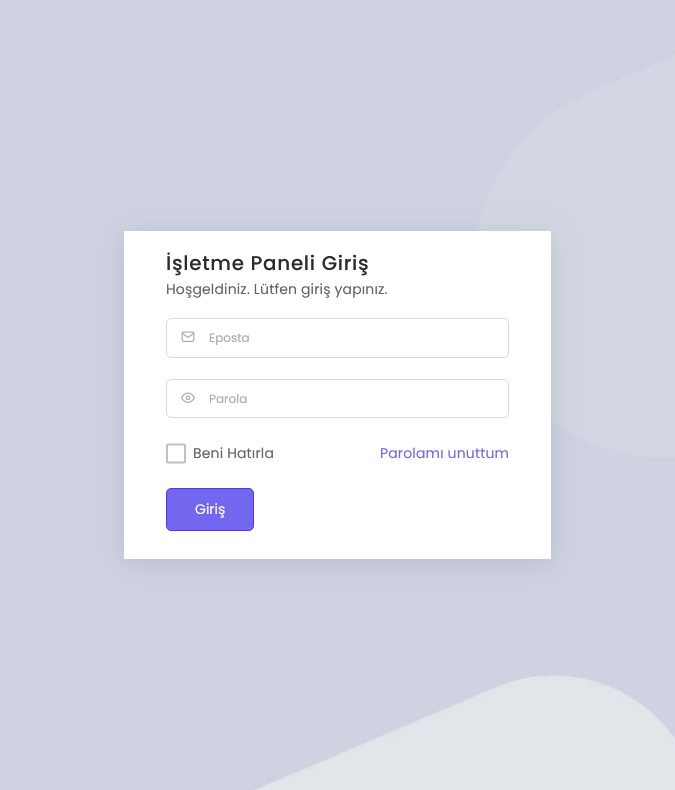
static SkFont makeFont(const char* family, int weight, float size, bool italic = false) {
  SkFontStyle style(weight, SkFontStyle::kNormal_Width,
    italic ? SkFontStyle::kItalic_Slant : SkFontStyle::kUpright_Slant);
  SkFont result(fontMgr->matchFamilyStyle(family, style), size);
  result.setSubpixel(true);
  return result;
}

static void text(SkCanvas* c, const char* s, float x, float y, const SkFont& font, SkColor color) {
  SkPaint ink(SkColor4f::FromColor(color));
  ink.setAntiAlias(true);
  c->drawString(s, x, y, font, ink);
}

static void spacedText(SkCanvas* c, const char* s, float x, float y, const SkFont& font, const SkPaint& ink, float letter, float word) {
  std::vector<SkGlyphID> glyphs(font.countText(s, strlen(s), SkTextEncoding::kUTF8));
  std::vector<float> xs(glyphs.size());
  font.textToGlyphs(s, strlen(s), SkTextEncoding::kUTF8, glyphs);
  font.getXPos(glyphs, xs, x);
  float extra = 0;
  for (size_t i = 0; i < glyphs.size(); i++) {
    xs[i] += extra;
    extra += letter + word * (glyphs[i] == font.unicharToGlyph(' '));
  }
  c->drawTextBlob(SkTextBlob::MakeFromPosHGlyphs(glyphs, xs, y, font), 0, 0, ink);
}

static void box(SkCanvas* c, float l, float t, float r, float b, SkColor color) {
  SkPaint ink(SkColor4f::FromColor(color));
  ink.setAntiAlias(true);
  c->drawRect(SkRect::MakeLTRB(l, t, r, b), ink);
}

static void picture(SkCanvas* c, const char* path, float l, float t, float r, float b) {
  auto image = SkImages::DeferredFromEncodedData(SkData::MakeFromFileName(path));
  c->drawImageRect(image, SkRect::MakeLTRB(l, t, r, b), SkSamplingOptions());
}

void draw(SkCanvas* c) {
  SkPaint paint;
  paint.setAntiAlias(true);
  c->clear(0xffffffff);
  picture(c, "img_01.png", 0, 0, 675, 790);
  paint.setColor(0x1a000000);
  paint.setMaskFilter(SkMaskFilter::MakeBlur(kNormal_SkBlurStyle, 12.5f));
  c->drawRect(SkRect::MakeLTRB(124, 235, 551, 563), paint);
  paint.setMaskFilter(nullptr);
  box(c, 124, 231, 551, 559, 0xffffffff);
  SkFont face1 = makeFont("Poppins", 500, 19.9f);
  paint.setColor(0xff2c2c2c);
  spacedText(c, "İşletme Paneli Giriş", 166, 270, face1, paint, 0.7f, 0);
  SkFont face2 = makeFont("Poppins", 400, 14);
  paint.setColor(0xff626262);
  spacedText(c, "Hoşgeldiniz. Lütfen giriş yapınız.", 166, 294, face2, paint, 0.15f, 0);
  paint.setStyle(SkPaint::kStroke_Style);
  paint.setStrokeWidth(1);
  paint.setColor(0xffd9d9d9);
  c->drawRoundRect(SkRect::MakeLTRB(166.5f, 318.5f, 508.5f, 357.5f), 4.5f, 4.5f, paint);
  picture(c, "img_02.png", 181, 331, 195, 342);
  SkFont face3 = makeFont("Poppins", 400, 12);
  text(c, "Eposta", 209, 342, face3, 0xffa7a9ac);
  c->drawRoundRect(SkRect::MakeLTRB(166.5f, 379.5f, 508.5f, 417.5f), 4.5f, 4.5f, paint);
  picture(c, "img_03.png", 181, 392, 195, 403);
  text(c, "Parola", 209, 403, face3, 0xffa7a9ac);
  paint.setStrokeWidth(2);
  paint.setColor(0xffb8c2cc);
  c->drawPath(SkPathBuilder().moveTo(167, 461.5f).lineTo(167, 445.5f).cubicTo(167, 445, 167.5f, 444.5f, 168, 444.5f).lineTo(184, 444.5f).cubicTo(184.5f, 444.5f, 185, 445, 185, 445.5f).lineTo(185, 461.5f).cubicTo(185, 462, 184.5f, 462.5f, 184, 462.5f).lineTo(168, 462.5f).cubicTo(167.5f, 462.5f, 167, 462, 167, 461.5f).close().detach(), paint);
  paint.setStyle(SkPaint::kFill_Style);
  paint.setColor(0xff626262);
  spacedText(c, "Beni Hatırla", 193, 458, face2, paint, 0.15f, 0);
  paint.setColor(0xff7367f0);
  spacedText(c, "Parolamı unuttum", 380, 458, face2, paint, 0.15f, 0);
  c->drawRoundRect(SkRect::MakeLTRB(166.5f, 488.5f, 253.5f, 530.5f), 4.5f, 4.5f, paint);
  paint.setStyle(SkPaint::kStroke_Style);
  paint.setStrokeWidth(1);
  paint.setColor(0xff4839eb);
  c->drawRoundRect(SkRect::MakeLTRB(166.5f, 488.5f, 253.5f, 530.5f), 4.5f, 4.5f, paint);
  text(c, "Giriş", 195, 514, face2, 0xffffffff);
}
